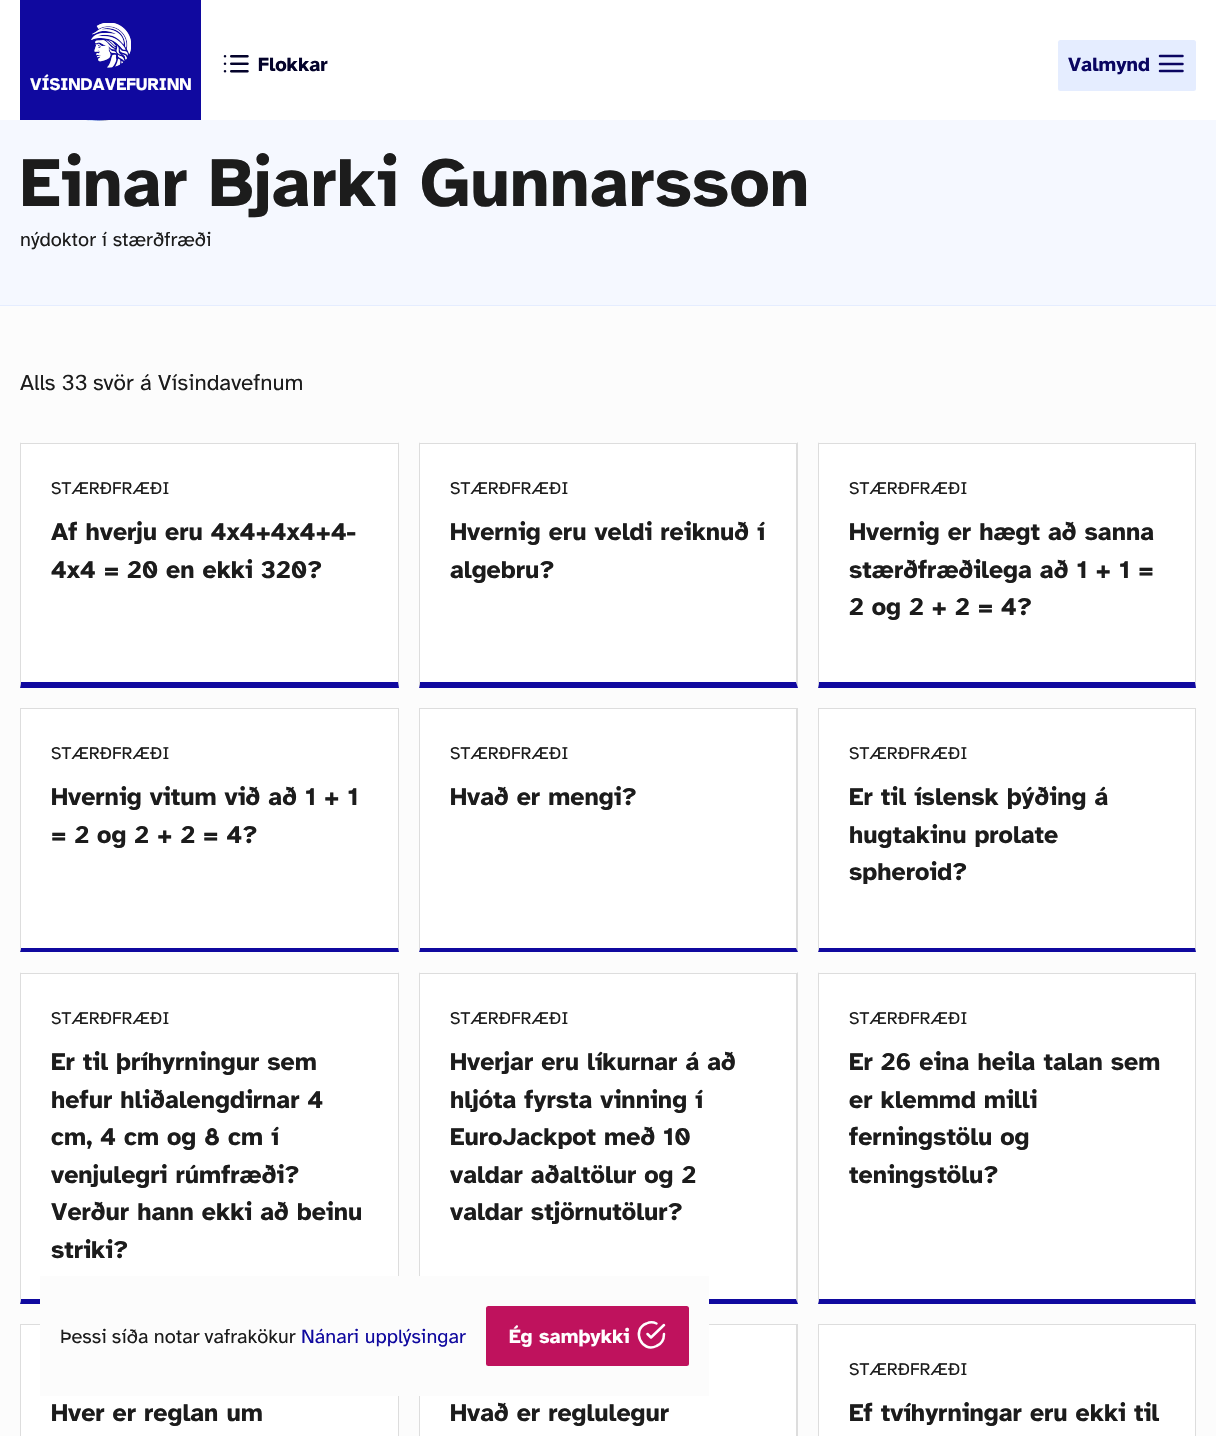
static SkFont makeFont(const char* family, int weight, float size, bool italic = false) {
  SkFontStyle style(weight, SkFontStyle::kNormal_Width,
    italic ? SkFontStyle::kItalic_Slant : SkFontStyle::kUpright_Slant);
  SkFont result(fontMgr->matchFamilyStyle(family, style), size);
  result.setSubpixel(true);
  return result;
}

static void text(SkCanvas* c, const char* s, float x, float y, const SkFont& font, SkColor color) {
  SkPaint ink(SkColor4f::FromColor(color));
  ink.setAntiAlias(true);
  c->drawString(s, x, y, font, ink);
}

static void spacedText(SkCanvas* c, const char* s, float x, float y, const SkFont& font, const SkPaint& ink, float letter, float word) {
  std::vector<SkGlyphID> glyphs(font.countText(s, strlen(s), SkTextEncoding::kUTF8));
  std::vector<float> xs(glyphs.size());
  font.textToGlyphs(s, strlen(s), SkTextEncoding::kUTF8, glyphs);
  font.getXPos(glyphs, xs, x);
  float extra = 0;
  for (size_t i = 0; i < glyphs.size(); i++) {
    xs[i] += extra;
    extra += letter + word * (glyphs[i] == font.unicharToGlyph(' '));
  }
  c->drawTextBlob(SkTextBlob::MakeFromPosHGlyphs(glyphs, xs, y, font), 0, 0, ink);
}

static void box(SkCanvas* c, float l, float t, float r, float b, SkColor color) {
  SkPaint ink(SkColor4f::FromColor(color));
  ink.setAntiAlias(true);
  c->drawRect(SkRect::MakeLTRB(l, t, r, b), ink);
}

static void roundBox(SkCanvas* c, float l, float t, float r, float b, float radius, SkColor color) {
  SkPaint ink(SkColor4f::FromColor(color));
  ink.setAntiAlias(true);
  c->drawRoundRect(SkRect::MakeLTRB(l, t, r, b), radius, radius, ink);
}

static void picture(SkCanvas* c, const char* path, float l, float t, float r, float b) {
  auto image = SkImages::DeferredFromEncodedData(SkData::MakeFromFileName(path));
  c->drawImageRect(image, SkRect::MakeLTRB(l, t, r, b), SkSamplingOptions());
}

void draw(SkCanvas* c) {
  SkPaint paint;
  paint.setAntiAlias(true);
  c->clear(0xfffcfcfc);
  box(c, 0, 0, 1216, 120, 0xffffffff);
  picture(c, "img_01.png", 223, 55, 249, 73);
  SkFont face1 = makeFont("Atkinson Hyperlegible", 700, 20);
  text(c, "Flokkar", 258, 71, face1, 0xff04032b);
  roundBox(c, 1058, 40, 1196, 91, 2.5f, 0xffe5edff);
  text(c, "Valmynd", 1068, 71, face1, 0xff0a0561);
  paint.setStyle(SkPaint::kStroke_Style);
  paint.setStrokeWidth(2.5f);
  paint.setStrokeCap(SkPaint::kRound_Cap);
  paint.setStrokeJoin(SkPaint::kRound_Join);
  paint.setColor(0xff0a0561);
  c->drawPath(SkPathBuilder().moveTo(1160, 64).lineTo(1182.5f, 64).moveTo(1160, 56).lineTo(1182.5f, 56).moveTo(1160, 71).lineTo(1182.5f, 71).detach(), paint);
  box(c, 20, 0, 201, 120, 0xff10099f);
  picture(c, "img_02.png", 91, 23, 131, 68);
  SkFont face2 = makeFont("Atkinson Hyperlegible", 700, 17.5f);
  text(c, "VÍSINDAVEFURINN", 30, 90, face2, 0xffffffff);
  box(c, 0, 120, 1216, 305, 0xfff5f8ff);
  box(c, 0, 305, 1216, 306, 0xffe5edff);
  picture(c, "img_03.png", 86, 120, 109, 121);
  SkFont face3 = makeFont("Atkinson Hyperlegible", 700, 70);
  paint.setStyle(SkPaint::kFill_Style);
  paint.setColor(0xff1c1c1c);
  spacedText(c, "Einar Bjarki Gunnarsson", 20, 206, face3, paint, 0, -1);
  SkFont face4 = makeFont("Atkinson Hyperlegible", 400, 20);
  text(c, "nýdoktor í stærðfræði", 20, 246, face4, 0xff1c1c1c);
  SkFont face5 = makeFont("Atkinson Hyperlegible", 400, 22.5f);
  text(c, "Alls 33", 20, 390, face5, 0xff1c1c1c);
  text(c, "svör á Vísindavefnum", 93, 390, face5, 0xff1c1c1c);
  box(c, 21, 444, 398, 682, 0xffffffff);
  box(c, 20, 443, 399, 444, 0xffdddddd);
  paint.setColor(0xffdddddd);
  c->drawPath(SkPathBuilder().moveTo(399, 442).lineTo(399, 688).lineTo(398, 682).lineTo(398, 444).close().detach(), paint);
  paint.setColor(0xff10099f);
  c->drawPath(SkPathBuilder().moveTo(399, 688).lineTo(20, 688).lineTo(21, 682).lineTo(398, 682).close().detach(), paint);
  paint.setColor(0xffdddddd);
  c->drawPath(SkPathBuilder().moveTo(20, 688).lineTo(20, 442).lineTo(21, 444).lineTo(21, 682).close().detach(), paint);
  SkFont face6 = makeFont("Atkinson Hyperlegible", 400, 17.5f);
  text(c, "STÆRÐFRÆÐI", 51, 494, face6, 0xff1c1c1c);
  SkFont face7 = makeFont("Atkinson Hyperlegible", 700, 25);
  text(c, "Af hverju eru 4x4+4x4+4-", 51, 540, face7, 0xff1c1c1c);
  text(c, "4x4 = 20 en ekki 320?", 51, 578, face7, 0xff1c1c1c);
  box(c, 420, 444, 796, 682, 0xffffffff);
  box(c, 419, 443, 798, 444, 0xffdddddd);
  c->drawPath(SkPathBuilder().moveTo(798, 442).lineTo(798, 688).lineTo(796, 682).lineTo(796, 444).close().detach(), paint);
  paint.setColor(0xff10099f);
  c->drawPath(SkPathBuilder().moveTo(798, 688).lineTo(419, 688).lineTo(420, 682).lineTo(796, 682).close().detach(), paint);
  paint.setColor(0xffdddddd);
  c->drawPath(SkPathBuilder().moveTo(419, 688).lineTo(419, 442).lineTo(420, 444).lineTo(420, 682).close().detach(), paint);
  text(c, "STÆRÐFRÆÐI", 450, 494, face6, 0xff1c1c1c);
  text(c, "Hvernig eru veldi reiknuð í", 450, 540, face7, 0xff1c1c1c);
  text(c, "algebru?", 450, 578, face7, 0xff1c1c1c);
  box(c, 819, 444, 1195, 682, 0xffffffff);
  box(c, 818, 443, 1196, 444, 0xffdddddd);
  c->drawPath(SkPathBuilder().moveTo(1196, 442).lineTo(1196, 688).lineTo(1195, 682).lineTo(1195, 444).close().detach(), paint);
  paint.setColor(0xff10099f);
  c->drawPath(SkPathBuilder().moveTo(1196, 688).lineTo(818, 688).lineTo(819, 682).lineTo(1195, 682).close().detach(), paint);
  paint.setColor(0xffdddddd);
  c->drawPath(SkPathBuilder().moveTo(818, 688).lineTo(818, 442).lineTo(819, 444).lineTo(819, 682).close().detach(), paint);
  text(c, "STÆRÐFRÆÐI", 849, 494, face6, 0xff1c1c1c);
  text(c, "Hvernig er hægt að sanna", 849, 540, face7, 0xff1c1c1c);
  text(c, "stærðfræðilega að 1 + 1 =", 849, 578, face7, 0xff1c1c1c);
  text(c, "2 og 2 + 2 = 4?", 849, 615, face7, 0xff1c1c1c);
  box(c, 21, 709, 398, 948, 0xffffffff);
  box(c, 20, 708, 399, 709, 0xffdddddd);
  c->drawPath(SkPathBuilder().moveTo(399, 708).lineTo(399, 952).lineTo(398, 948).lineTo(398, 709).close().detach(), paint);
  paint.setColor(0xff10099f);
  c->drawPath(SkPathBuilder().moveTo(399, 952).lineTo(20, 952).lineTo(21, 948).lineTo(398, 948).close().detach(), paint);
  paint.setColor(0xffdddddd);
  c->drawPath(SkPathBuilder().moveTo(20, 952).lineTo(20, 708).lineTo(21, 709).lineTo(21, 948).close().detach(), paint);
  text(c, "STÆRÐFRÆÐI", 51, 759, face6, 0xff1c1c1c);
  text(c, "Hvernig vitum við að 1 + 1", 51, 805, face7, 0xff1c1c1c);
  text(c, "= 2 og 2 + 2 = 4?", 51, 843, face7, 0xff1c1c1c);
  box(c, 420, 709, 796, 948, 0xffffffff);
  box(c, 419, 708, 798, 709, 0xffdddddd);
  c->drawPath(SkPathBuilder().moveTo(798, 708).lineTo(798, 952).lineTo(796, 948).lineTo(796, 709).close().detach(), paint);
  paint.setColor(0xff10099f);
  c->drawPath(SkPathBuilder().moveTo(798, 952).lineTo(419, 952).lineTo(420, 948).lineTo(796, 948).close().detach(), paint);
  paint.setColor(0xffdddddd);
  c->drawPath(SkPathBuilder().moveTo(419, 952).lineTo(419, 708).lineTo(420, 709).lineTo(420, 948).close().detach(), paint);
  text(c, "STÆRÐFRÆÐI", 450, 759, face6, 0xff1c1c1c);
  text(c, "Hvað er mengi?", 450, 805, face7, 0xff1c1c1c);
  box(c, 819, 709, 1195, 948, 0xffffffff);
  box(c, 818, 708, 1196, 709, 0xffdddddd);
  c->drawPath(SkPathBuilder().moveTo(1196, 708).lineTo(1196, 952).lineTo(1195, 948).lineTo(1195, 709).close().detach(), paint);
  paint.setColor(0xff10099f);
  c->drawPath(SkPathBuilder().moveTo(1196, 952).lineTo(818, 952).lineTo(819, 948).lineTo(1195, 948).close().detach(), paint);
  paint.setColor(0xffdddddd);
  c->drawPath(SkPathBuilder().moveTo(818, 952).lineTo(818, 708).lineTo(819, 709).lineTo(819, 948).close().detach(), paint);
  text(c, "STÆRÐFRÆÐI", 849, 759, face6, 0xff1c1c1c);
  text(c, "Er til íslensk þýðing á", 849, 805, face7, 0xff1c1c1c);
  text(c, "hugtakinu prolate", 849, 843, face7, 0xff1c1c1c);
  text(c, "spheroid?", 849, 880, face7, 0xff1c1c1c);
  box(c, 21, 974, 398, 1299, 0xffffffff);
  box(c, 20, 973, 399, 974, 0xffdddddd);
  c->drawPath(SkPathBuilder().moveTo(399, 972).lineTo(399, 1304).lineTo(398, 1299).lineTo(398, 974).close().detach(), paint);
  paint.setColor(0xff10099f);
  c->drawPath(SkPathBuilder().moveTo(399, 1304).lineTo(20, 1304).lineTo(21, 1299).lineTo(398, 1299).close().detach(), paint);
  paint.setColor(0xffdddddd);
  c->drawPath(SkPathBuilder().moveTo(20, 1304).lineTo(20, 972).lineTo(21, 974).lineTo(21, 1299).close().detach(), paint);
  text(c, "STÆRÐFRÆÐI", 51, 1024, face6, 0xff1c1c1c);
  text(c, "Er til þríhyrningur sem", 51, 1070, face7, 0xff1c1c1c);
  text(c, "hefur hliðalengdirnar 4", 51, 1108, face7, 0xff1c1c1c);
  text(c, "cm, 4 cm og 8 cm í", 51, 1145, face7, 0xff1c1c1c);
  text(c, "venjulegri rúmfræði?", 51, 1183, face7, 0xff1c1c1c);
  text(c, "Verður hann ekki að beinu", 51, 1220, face7, 0xff1c1c1c);
  text(c, "striki?", 51, 1258, face7, 0xff1c1c1c);
  box(c, 420, 974, 796, 1299, 0xffffffff);
  box(c, 419, 973, 798, 974, 0xffdddddd);
  c->drawPath(SkPathBuilder().moveTo(798, 972).lineTo(798, 1304).lineTo(796, 1299).lineTo(796, 974).close().detach(), paint);
  paint.setColor(0xff10099f);
  c->drawPath(SkPathBuilder().moveTo(798, 1304).lineTo(419, 1304).lineTo(420, 1299).lineTo(796, 1299).close().detach(), paint);
  paint.setColor(0xffdddddd);
  c->drawPath(SkPathBuilder().moveTo(419, 1304).lineTo(419, 972).lineTo(420, 974).lineTo(420, 1299).close().detach(), paint);
  text(c, "STÆRÐFRÆÐI", 450, 1024, face6, 0xff1c1c1c);
  text(c, "Hverjar eru líkurnar á að", 450, 1070, face7, 0xff1c1c1c);
  text(c, "hljóta fyrsta vinning í", 450, 1108, face7, 0xff1c1c1c);
  text(c, "EuroJackpot með 10", 450, 1145, face7, 0xff1c1c1c);
  text(c, "valdar aðaltölur og 2", 450, 1183, face7, 0xff1c1c1c);
  text(c, "valdar stjörnutölur?", 450, 1220, face7, 0xff1c1c1c);
  box(c, 819, 974, 1195, 1299, 0xffffffff);
  box(c, 818, 973, 1196, 974, 0xffdddddd);
  c->drawPath(SkPathBuilder().moveTo(1196, 972).lineTo(1196, 1304).lineTo(1195, 1299).lineTo(1195, 974).close().detach(), paint);
  paint.setColor(0xff10099f);
  c->drawPath(SkPathBuilder().moveTo(1196, 1304).lineTo(818, 1304).lineTo(819, 1299).lineTo(1195, 1299).close().detach(), paint);
  paint.setColor(0xffdddddd);
  c->drawPath(SkPathBuilder().moveTo(818, 1304).lineTo(818, 972).lineTo(819, 974).lineTo(819, 1299).close().detach(), paint);
  text(c, "STÆRÐFRÆÐI", 849, 1024, face6, 0xff1c1c1c);
  text(c, "Er 26 eina heila talan sem", 849, 1070, face7, 0xff1c1c1c);
  text(c, "er klemmd milli", 849, 1108, face7, 0xff1c1c1c);
  text(c, "ferningstölu og", 849, 1145, face7, 0xff1c1c1c);
  text(c, "teningstölu?", 849, 1183, face7, 0xff1c1c1c);
  box(c, 21, 1325, 398, 1436, 0xffffffff);
  box(c, 20, 1324, 40, 1325, 0xffdddddd);
  c->drawPath(SkPathBuilder().moveTo(399, 1324).lineTo(399, 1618).lineTo(398, 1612).lineTo(398, 1325).close().detach(), paint);
  c->drawPath(SkPathBuilder().moveTo(20, 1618).lineTo(20, 1324).lineTo(21, 1325).lineTo(21, 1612).close().detach(), paint);
  text(c, "Hver er reglan um", 51, 1421, face7, 0xff1c1c1c);
  box(c, 420, 1325, 796, 1436, 0xffffffff);
  box(c, 709, 1324, 798, 1325, 0xffdddddd);
  c->drawPath(SkPathBuilder().moveTo(798, 1324).lineTo(798, 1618).lineTo(796, 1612).lineTo(796, 1325).close().detach(), paint);
  c->drawPath(SkPathBuilder().moveTo(419, 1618).lineTo(419, 1324).lineTo(420, 1325).lineTo(420, 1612).close().detach(), paint);
  text(c, "Hvað er reglulegur", 450, 1421, face7, 0xff1c1c1c);
  box(c, 819, 1325, 1195, 1436, 0xffffffff);
  box(c, 818, 1324, 1196, 1325, 0xffdddddd);
  c->drawPath(SkPathBuilder().moveTo(1196, 1324).lineTo(1196, 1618).lineTo(1195, 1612).lineTo(1195, 1325).close().detach(), paint);
  c->drawPath(SkPathBuilder().moveTo(818, 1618).lineTo(818, 1324).lineTo(819, 1325).lineTo(819, 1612).close().detach(), paint);
  text(c, "STÆRÐFRÆÐI", 849, 1375, face6, 0xff1c1c1c);
  text(c, "Ef tvíhyrningar eru ekki til", 849, 1421, face7, 0xff1c1c1c);
  box(c, 40, 1276, 709, 1396, 0xfffcfcfc);
  paint.setColor(0xff1c1c1c);
  spacedText(c, "Þessi síða notar vafrakökur", 60, 1343, face4, paint, 0, -0.5f);
  text(c, "Nánari upplýsingar", 301, 1343, face4, 0xff10099f);
  roundBox(c, 486, 1306, 689, 1366, 2.5f, 0xffbf125d);
  text(c, "Ég samþykki", 509, 1343, face1, 0xffffffff);
  paint.setStyle(SkPaint::kStroke_Style);
  paint.setColor(0xffffffff);
  c->drawPath(SkPathBuilder().moveTo(664, 1334).cubicTo(664, 1339, 661.5f, 1344, 656.5f, 1346).cubicTo(641.5f, 1353.5f, 631, 1329.5f, 646.5f, 1323.5f).cubicTo(649.5f, 1322, 653.5f, 1322, 656.5f, 1323.5f).moveTo(664, 1325).lineTo(651, 1337.5f).lineTo(647.5f, 1334).detach(), paint);
}
